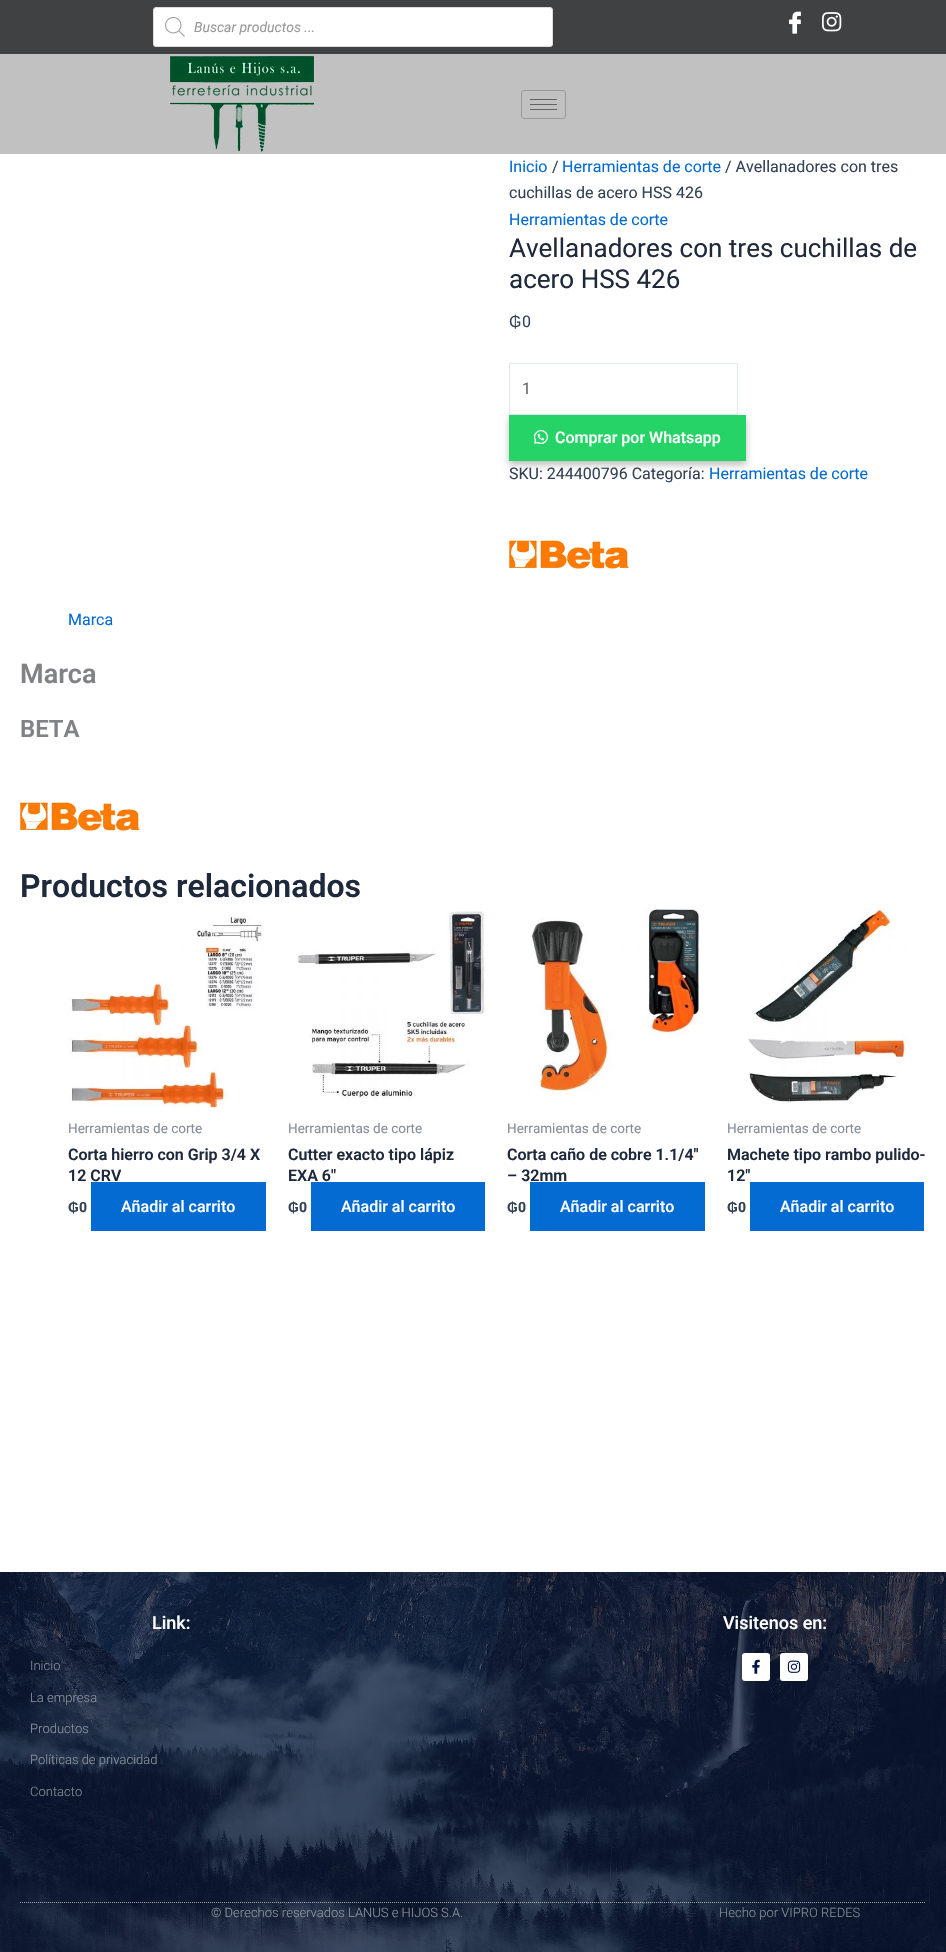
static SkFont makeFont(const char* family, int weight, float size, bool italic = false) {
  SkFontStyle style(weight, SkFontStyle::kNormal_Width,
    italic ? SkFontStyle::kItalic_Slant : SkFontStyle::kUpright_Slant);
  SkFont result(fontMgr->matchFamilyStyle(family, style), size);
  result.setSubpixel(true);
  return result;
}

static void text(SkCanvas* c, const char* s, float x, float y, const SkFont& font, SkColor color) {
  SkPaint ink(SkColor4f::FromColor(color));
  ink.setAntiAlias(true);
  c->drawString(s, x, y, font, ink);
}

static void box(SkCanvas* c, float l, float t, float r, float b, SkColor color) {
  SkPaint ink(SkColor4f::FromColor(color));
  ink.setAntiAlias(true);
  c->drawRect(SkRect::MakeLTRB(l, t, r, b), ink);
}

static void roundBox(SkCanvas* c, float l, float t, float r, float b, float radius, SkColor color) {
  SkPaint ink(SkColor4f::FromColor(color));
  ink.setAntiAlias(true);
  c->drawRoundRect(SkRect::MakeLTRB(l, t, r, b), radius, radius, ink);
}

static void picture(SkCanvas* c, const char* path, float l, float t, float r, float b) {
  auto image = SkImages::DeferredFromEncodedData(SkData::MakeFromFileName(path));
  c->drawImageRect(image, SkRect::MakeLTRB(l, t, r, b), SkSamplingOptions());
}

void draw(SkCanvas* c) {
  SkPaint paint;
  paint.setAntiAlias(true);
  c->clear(0xffffffff);
  box(c, 0, 0, 946, 54, 0xff3f4142);
  paint.setColor(0xffffffff);
  c->drawRoundRect(SkRect::MakeLTRB(153.5f, 7.5f, 552.5f, 46.5f), 2.5f, 2.5f, paint);
  paint.setStyle(SkPaint::kStroke_Style);
  paint.setStrokeWidth(1);
  paint.setColor(0xffdddddd);
  c->drawRoundRect(SkRect::MakeLTRB(153.5f, 7.5f, 552.5f, 46.5f), 2.5f, 2.5f, paint);
  picture(c, "img_01.png", 165, 17, 185, 37);
  SkFont face1 = makeFont("Roboto", 400, 14, true);
  text(c, "Buscar productos ...", 194, 32, face1, 0xff999999);
  picture(c, "img_02.png", 789, 11, 801, 34);
  picture(c, "img_03.png", 822, 12, 842, 32);
  box(c, 0, 54, 946, 154, 0xffc2c1c1);
  picture(c, "img_04.png", 170, 56, 314, 152);
  paint.setColor(0xff9b9a9a);
  c->drawRoundRect(SkRect::MakeLTRB(521.5f, 90.5f, 565.5f, 118.5f), 2.5f, 2.5f, paint);
  box(c, 530, 99, 557, 100, 0xff616161);
  box(c, 530, 104, 557, 105, 0xff616161);
  box(c, 530, 109, 557, 110, 0xff616161);
  SkFont face2 = makeFont("Roboto", 400, 16);
  text(c, "Inicio", 509, 172, face2, 0xff046bd2);
  text(c, "/", 552, 172, face2, 0xff334155);
  text(c, "Herramientas de corte", 562, 172, face2, 0xff046bd2);
  text(c, "/ Avellanadores con tres", 725, 172, face2, 0xff334155);
  text(c, "cuchillas de acero HSS 426", 509, 198, face2, 0xff334155);
  text(c, "Herramientas de corte", 509, 225, face2, 0xff046bd2);
  SkFont face3 = makeFont("Roboto", 400, 26);
  text(c, "Avellanadores con tres cuchillas de", 509, 257, face3, 0xff1e293b);
  text(c, "acero HSS 426", 509, 288, face3, 0xff1e293b);
  SkFont face4 = makeFont("Liberation Sans", 400, 16);
  text(c, "₲", 509, 327, face4, 0xff334155);
  text(c, "0", 522, 327, face2, 0xff334155);
  paint.setColor(0xffe2e8f0);
  c->drawRect(SkRect::MakeLTRB(509.5f, 363.5f, 737.5f, 414.5f), paint);
  text(c, "1", 522, 394, face2, 0xff666666);
  paint.setStyle(SkPaint::kFill_Style);
  paint.setColor(0x40000000);
  paint.setMaskFilter(SkMaskFilter::MakeBlur(kNormal_SkBlurStyle, 3.5f));
  c->drawRect(SkRect::MakeLTRB(509, 419, 746, 465), paint);
  paint.setMaskFilter(nullptr);
  box(c, 509, 415, 746, 461, 0xff25d366);
  picture(c, "img_05.png", 534, 430, 548, 444);
  SkFont face5 = makeFont("Roboto", 500, 16);
  text(c, "Comprar por Whatsapp", 555, 443, face5, 0xffffffff);
  text(c, "SKU: 244400796 Categoría:", 509, 479, face2, 0xff334155);
  text(c, "Herramientas de corte", 709, 479, face2, 0xff046bd2);
  picture(c, "img_06.png", 509, 540, 629, 569);
  text(c, "Marca", 68, 625, face2, 0xff046bd2);
  SkFont face6 = makeFont("Roboto", 600, 27);
  text(c, "Marca", 20, 683, face6, 0xff808285);
  SkFont face7 = makeFont("Roboto", 600, 24);
  text(c, "BETA", 20, 737, face7, 0xff808285);
  picture(c, "img_06.png", 20, 802, 140, 831);
  SkFont face8 = makeFont("Roboto", 600, 32);
  text(c, "Productos relacionados", 20, 897, face8, 0xff1e293b);
  picture(c, "img_07.png", 68, 913, 264, 1107);
  SkFont face9 = makeFont("Roboto", 400, 13.5f);
  text(c, "Herramientas de corte", 68, 1133, face9, 0xff858d99);
  SkFont face10 = makeFont("Roboto", 600, 16);
  text(c, "Corta hierro con Grip 3/4 X", 68, 1160, face10, 0xff1e293b);
  text(c, "12 CRV", 68, 1181, face10, 0xff1e293b);
  SkFont face11 = makeFont("Liberation Sans", 700, 14);
  text(c, "₲", 68, 1212, face11, 0xff334155);
  SkFont face12 = makeFont("Roboto", 700, 14);
  text(c, "0", 79, 1212, face12, 0xff334155);
  box(c, 91, 1182, 266, 1231, 0xff046bd2);
  text(c, "Añadir al carrito", 121, 1212, face5, 0xffffffff);
  picture(c, "img_08.png", 297, 911, 485, 1099);
  text(c, "Herramientas de corte", 288, 1133, face9, 0xff858d99);
  text(c, "Cutter exacto tipo lápiz", 288, 1160, face10, 0xff1e293b);
  text(c, "EXA 6″", 288, 1181, face10, 0xff1e293b);
  text(c, "₲", 288, 1212, face11, 0xff334155);
  text(c, "0", 299, 1212, face12, 0xff334155);
  box(c, 311, 1182, 485, 1231, 0xff046bd2);
  text(c, "Añadir al carrito", 341, 1212, face5, 0xffffffff);
  picture(c, "img_09.png", 531, 908, 699, 1094);
  text(c, "Herramientas de corte", 507, 1133, face9, 0xff858d99);
  text(c, "Corta caño de cobre 1.1/4″", 507, 1160, face10, 0xff1e293b);
  text(c, "– 32mm", 507, 1181, face10, 0xff1e293b);
  text(c, "₲", 507, 1212, face11, 0xff334155);
  text(c, "0", 518, 1212, face12, 0xff334155);
  box(c, 530, 1182, 705, 1231, 0xff046bd2);
  text(c, "Añadir al carrito", 560, 1212, face5, 0xffffffff);
  picture(c, "img_10.png", 748, 908, 908, 1104);
  text(c, "Herramientas de corte", 727, 1133, face9, 0xff858d99);
  text(c, "Machete tipo rambo pulido-", 727, 1160, face10, 0xff1e293b);
  text(c, "12″", 727, 1181, face10, 0xff1e293b);
  text(c, "₲", 727, 1212, face11, 0xff334155);
  text(c, "0", 738, 1212, face12, 0xff334155);
  box(c, 750, 1182, 924, 1231, 0xff046bd2);
  text(c, "Añadir al carrito", 780, 1212, face5, 0xffffffff);
  picture(c, "img_11.png", 0, 1572, 946, 1952);
  SkFont face13 = makeFont("Roboto", 500, 18);
  text(c, "Link:", 152, 1629, face13, 0xffffffff);
  SkFont face14 = makeFont("Roboto", 300, 13);
  text(c, "Inicio", 30, 1670, face14, 0xff858d99);
  text(c, "La empresa", 30, 1702, face14, 0xff8e94a0);
  text(c, "Productos", 30, 1733, face14, 0xff8e94a0);
  text(c, "Políticas de privacidad", 30, 1764, face14, 0xff8e94a0);
  text(c, "Contacto", 30, 1796, face14, 0xff858d99);
  text(c, "Visitenos en:", 723, 1629, face13, 0xffffffff);
  roundBox(c, 742, 1653, 770, 1681, 3, 0xffffffff);
  picture(c, "img_12.png", 752, 1659, 760, 1674);
  roundBox(c, 780, 1653, 808, 1681, 3, 0xffffffff);
  picture(c, "img_13.png", 787, 1660, 801, 1673);
  paint.setStyle(SkPaint::kStroke_Style);
  paint.setColor(0x96ffffff);
  paint.setPathEffect(SkDashPathEffect::Make({{1, 1}}, 0));
  c->drawPath(SkPathBuilder().moveTo(20, 1902.5f).lineTo(926, 1902.5f).detach(), paint);
  paint.setPathEffect(nullptr);
  text(c, "© Derechos reservados LANUS e HIJOS S.A.", 211, 1917, face14, 0xff8e94a0);
  text(c, "Hecho por VIPRO REDES", 719, 1917, face14, 0xff858d99);
}
